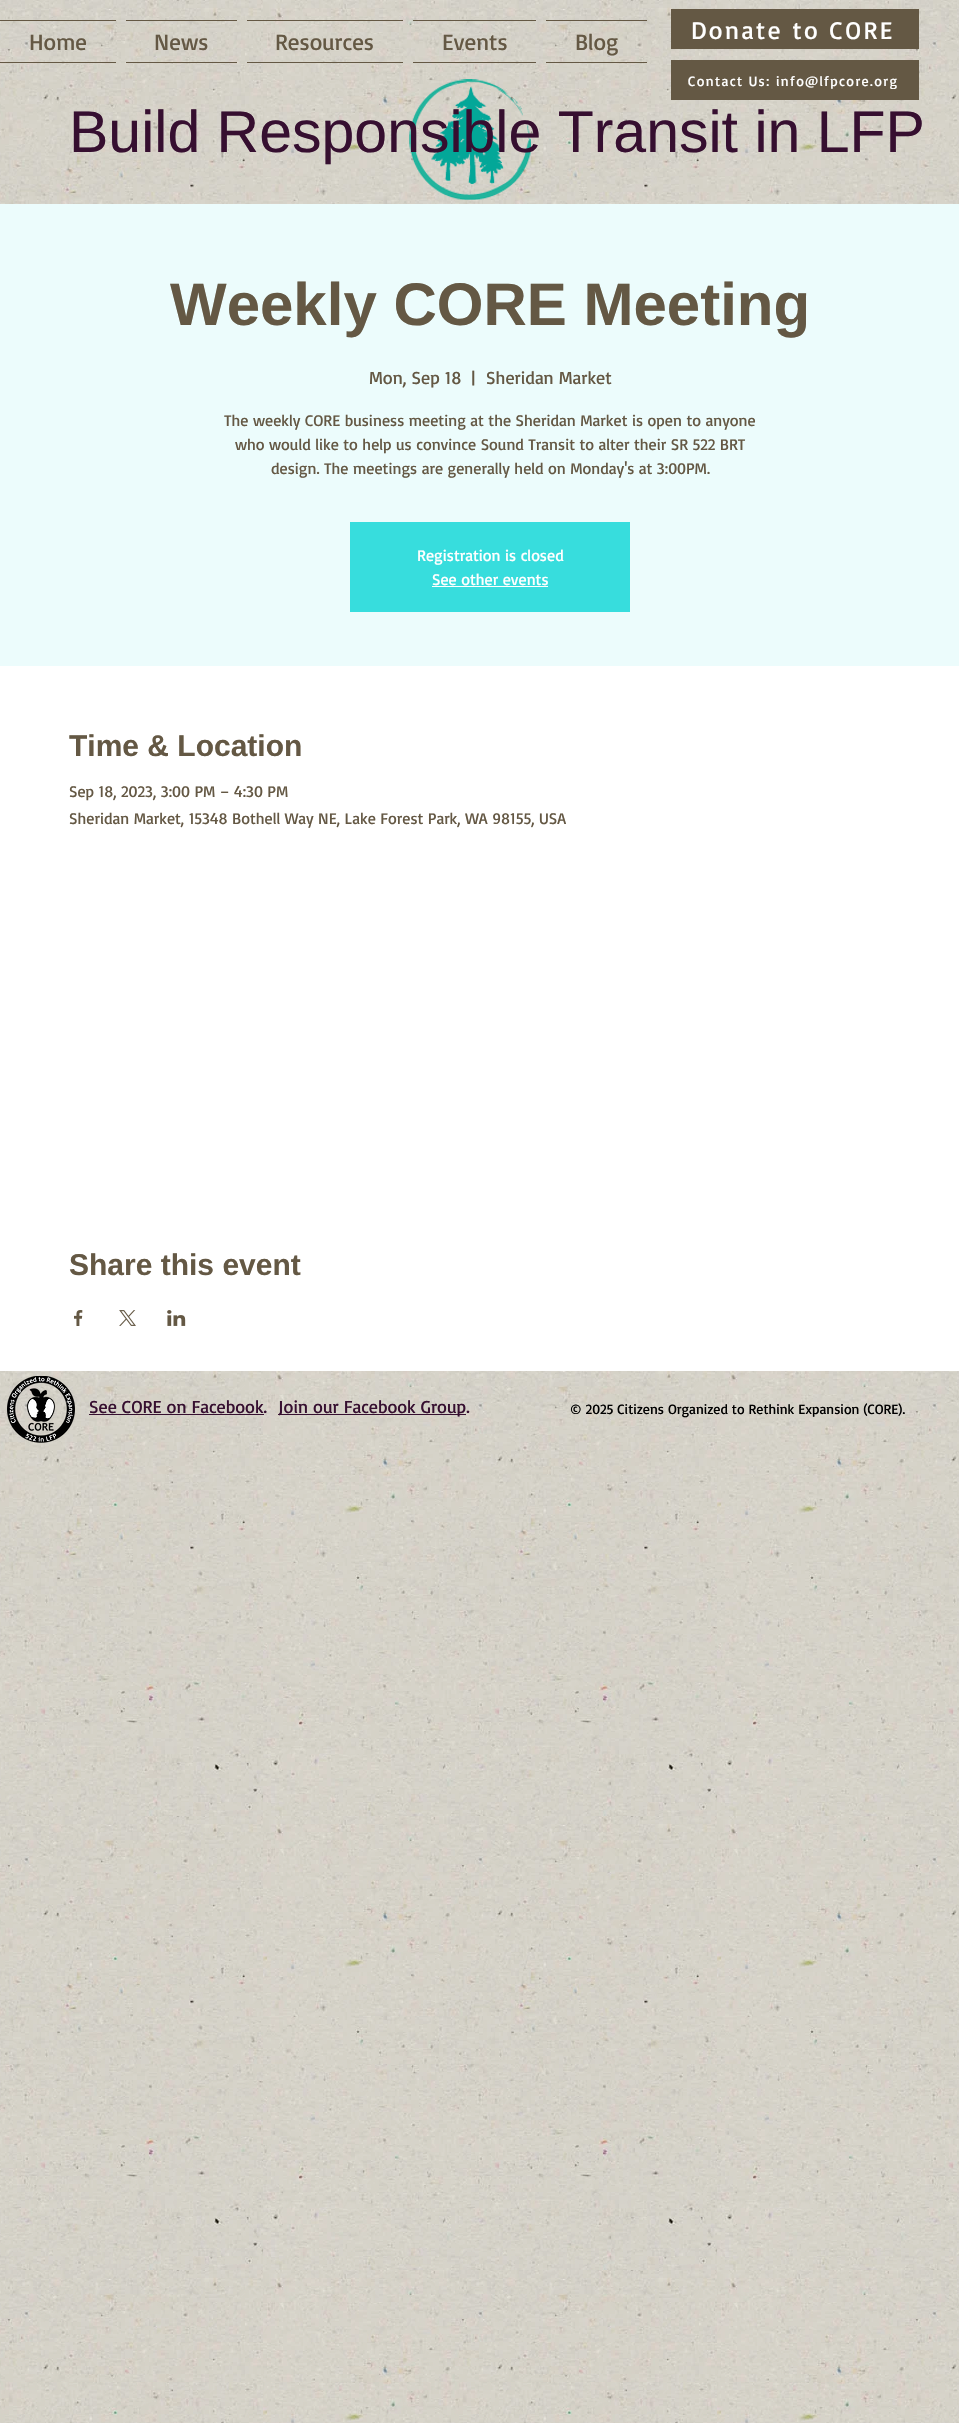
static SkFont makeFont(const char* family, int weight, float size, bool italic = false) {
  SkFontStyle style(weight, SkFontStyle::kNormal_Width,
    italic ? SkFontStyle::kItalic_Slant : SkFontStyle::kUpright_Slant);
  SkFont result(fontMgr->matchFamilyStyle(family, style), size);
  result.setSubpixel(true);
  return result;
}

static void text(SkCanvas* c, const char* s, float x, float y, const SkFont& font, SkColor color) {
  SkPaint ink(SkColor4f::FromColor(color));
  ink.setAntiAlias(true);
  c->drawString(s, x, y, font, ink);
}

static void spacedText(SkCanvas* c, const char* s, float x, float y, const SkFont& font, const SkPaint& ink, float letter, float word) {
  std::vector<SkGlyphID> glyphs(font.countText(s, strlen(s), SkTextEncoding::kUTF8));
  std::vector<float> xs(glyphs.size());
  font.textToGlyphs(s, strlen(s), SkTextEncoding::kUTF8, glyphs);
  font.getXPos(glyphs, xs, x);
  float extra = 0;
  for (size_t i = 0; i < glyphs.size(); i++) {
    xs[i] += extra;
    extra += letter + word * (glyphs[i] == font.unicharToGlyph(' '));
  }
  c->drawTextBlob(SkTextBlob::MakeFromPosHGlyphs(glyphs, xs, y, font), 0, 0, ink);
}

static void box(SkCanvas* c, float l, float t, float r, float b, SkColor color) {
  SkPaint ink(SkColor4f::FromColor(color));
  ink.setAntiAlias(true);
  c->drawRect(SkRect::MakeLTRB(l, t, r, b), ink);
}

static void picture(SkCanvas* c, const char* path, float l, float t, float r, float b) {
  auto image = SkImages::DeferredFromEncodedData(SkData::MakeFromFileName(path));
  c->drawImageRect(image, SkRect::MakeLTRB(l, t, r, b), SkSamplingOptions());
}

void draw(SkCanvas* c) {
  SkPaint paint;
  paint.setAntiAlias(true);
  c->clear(0xffffffff);
  picture(c, "img_01.png", 0, 0, 959, 2423);
  box(c, 671, 9, 919, 49, 0xff645844);
  SkFont face1 = makeFont("Basic", 400, 25);
  paint.setColor(0xffffffff);
  spacedText(c, "Donate to CORE", 691, 39, face1, paint, 2.5f, 0);
  box(c, 0, 20, 116, 21, 0xff645844);
  box(c, 0, 62, 116, 63, 0xff645844);
  SkFont face2 = makeFont("Basic", 400, 23);
  text(c, "Home", 29, 50, face2, 0xff645844);
  box(c, 126, 20, 237, 21, 0xff645844);
  box(c, 126, 62, 237, 63, 0xff645844);
  text(c, "News", 154, 50, face2, 0xff645844);
  box(c, 247, 20, 403, 21, 0xff645844);
  box(c, 247, 62, 403, 63, 0xff645844);
  text(c, "Resources", 275, 50, face2, 0xff645844);
  box(c, 413, 20, 536, 21, 0xff645844);
  box(c, 413, 62, 536, 63, 0xff645844);
  text(c, "Events", 442, 50, face2, 0xff645844);
  box(c, 546, 20, 647, 21, 0xff645844);
  box(c, 546, 62, 647, 63, 0xff645844);
  text(c, "Blog", 575, 50, face2, 0xff645844);
  picture(c, "img_02.png", 409, 79, 531, 200);
  box(c, 671, 60, 919, 100, 0xff645844);
  c->save();
  c->clipRect(SkRect::MakeLTRB(688, 72, 898, 89));
  SkFont face3 = makeFont("Basic", 400, 14);
  spacedText(c, "Contact Us: info@lfpcore.org", 688, 86, face3, paint, 1.4f, 0);
  c->restore();
  SkFont face4 = makeFont("Liberation Sans", 400, 59);
  text(c, "Build Responsible Transit in LFP", 69, 152, face4, 0xff360f30);
  box(c, 0, 204, 959, 666, 0xffecfcfc);
  SkFont face5 = makeFont("Liberation Sans", 700, 60);
  text(c, "Weekly CORE Meeting", 170, 325, face5, 0xff645844);
  SkFont face6 = makeFont("Basic", 400, 18);
  text(c, "Mon, Sep 18", 369, 384, face6, 0xff645844);
  text(c, "|", 471, 384, face6, 0xff645844);
  text(c, "Sheridan Market", 486, 384, face6, 0xff645844);
  SkFont face7 = makeFont("Basic", 400, 16);
  text(c, "The weekly CORE business meeting at the Sheridan Market is open to anyone", 224, 426, face7, 0xff645844);
  text(c, "who would like to help us convince Sound Transit to alter their SR 522 BRT", 235, 450, face7, 0xff645844);
  text(c, "design. The meetings are generally held on Monday's at 3:00PM.", 271, 474, face7, 0xff645844);
  box(c, 350, 522, 630, 612, 0xff37dddd);
  text(c, "Registration is closed", 417, 561, face7, 0xffffffff);
  text(c, "See other events", 432, 585, face7, 0xffffffff);
  box(c, 432, 586, 548, 587, 0xffffffff);
  box(c, 0, 666, 959, 1371, 0xffffffff);
  SkFont face8 = makeFont("Liberation Sans", 700, 30);
  text(c, "Time & Location", 69, 756, face8, 0xff645844);
  text(c, "Sep 18, 2023, 3:00 PM – 4:30 PM", 69, 797, face7, 0xff645844);
  text(c, "Sheridan Market, 15348 Bothell Way NE, Lake Forest Park, WA 98155, USA", 69, 824, face7, 0xff645844);
  text(c, "Share this event", 69, 1275, face8, 0xff645844);
  picture(c, "img_03.png", 74, 1310, 83, 1326);
  picture(c, "img_04.png", 119, 1310, 136, 1326);
  picture(c, "img_05.png", 167, 1310, 186, 1326);
  picture(c, "img_06.png", 7, 1376, 75, 1443);
  text(c, "See CORE on Facebook.", 89, 1413, face6, 0xff360f30);
  box(c, 89, 1414, 264, 1415, 0xff360f30);
  box(c, 278, 1414, 466, 1415, 0xff360f30);
  text(c, "Join our Facebook Group.", 278, 1413, face6, 0xff360f30);
  text(c, "© 2025 Citizens Organized to Rethink Expansion (CORE).", 570, 1414, face3, 0xff000000);
}
